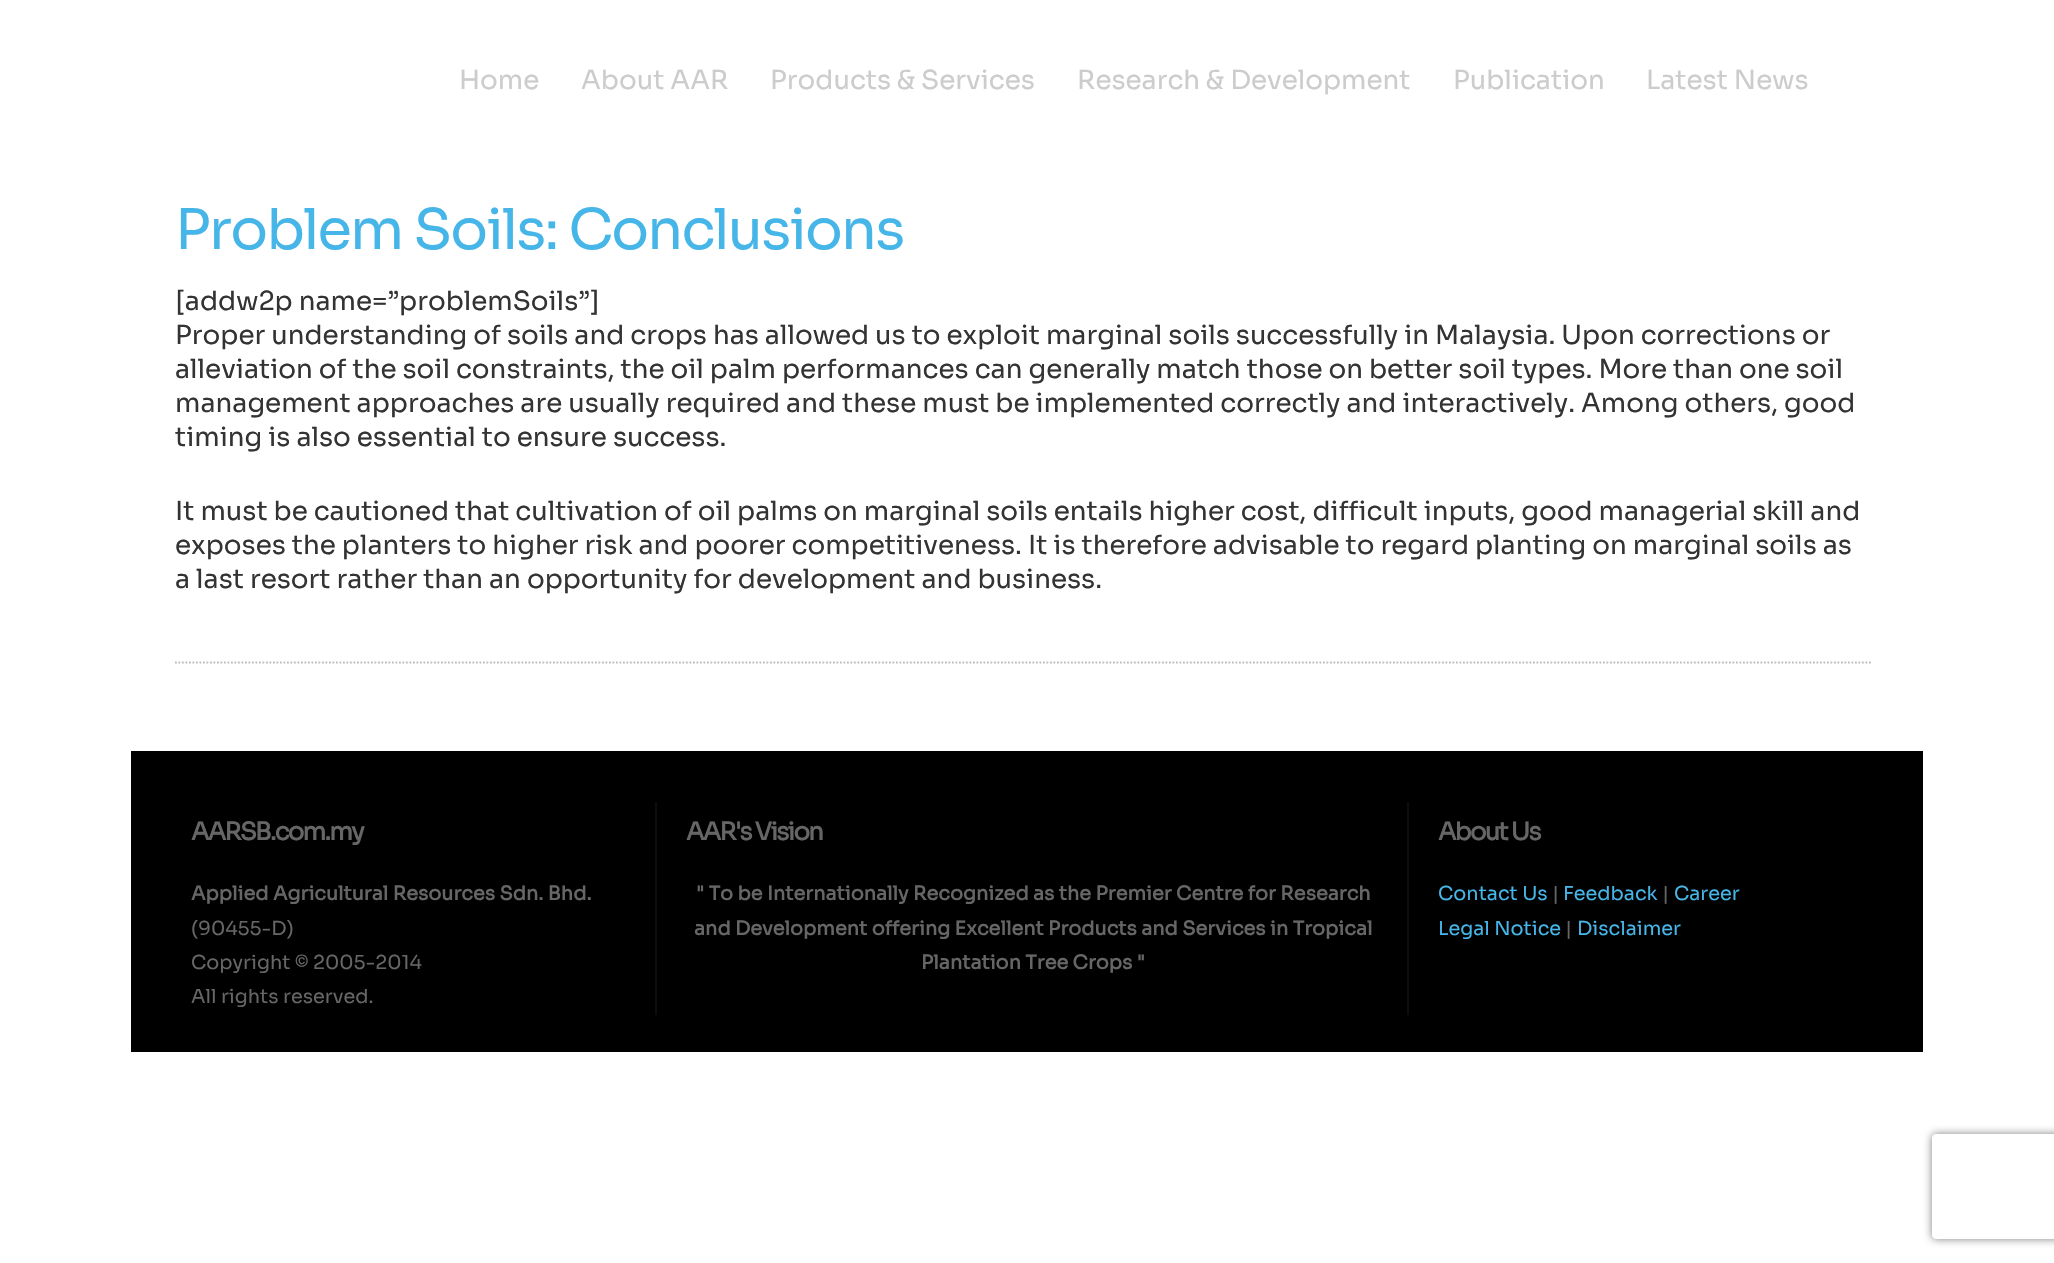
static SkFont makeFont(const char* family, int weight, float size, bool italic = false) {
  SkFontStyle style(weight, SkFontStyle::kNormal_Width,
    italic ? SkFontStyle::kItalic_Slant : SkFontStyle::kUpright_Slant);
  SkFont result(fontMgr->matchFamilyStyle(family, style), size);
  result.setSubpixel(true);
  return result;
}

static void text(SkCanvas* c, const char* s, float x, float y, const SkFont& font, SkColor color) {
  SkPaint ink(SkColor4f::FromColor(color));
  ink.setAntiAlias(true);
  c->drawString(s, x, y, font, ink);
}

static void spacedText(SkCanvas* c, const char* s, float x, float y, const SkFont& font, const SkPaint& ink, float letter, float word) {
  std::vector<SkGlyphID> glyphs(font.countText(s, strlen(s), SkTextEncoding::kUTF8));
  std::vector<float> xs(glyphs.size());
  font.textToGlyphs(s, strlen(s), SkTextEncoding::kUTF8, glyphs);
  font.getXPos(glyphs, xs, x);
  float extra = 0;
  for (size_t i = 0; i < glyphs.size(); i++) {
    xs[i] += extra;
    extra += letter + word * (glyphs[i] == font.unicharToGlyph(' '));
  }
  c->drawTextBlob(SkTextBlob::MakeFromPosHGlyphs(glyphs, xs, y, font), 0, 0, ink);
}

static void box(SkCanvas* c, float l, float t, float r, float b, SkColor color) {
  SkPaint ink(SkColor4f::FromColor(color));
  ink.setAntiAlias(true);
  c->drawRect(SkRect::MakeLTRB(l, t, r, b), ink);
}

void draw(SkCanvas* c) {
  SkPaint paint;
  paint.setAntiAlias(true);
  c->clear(0xffffffff);
  SkFont face1 = makeFont("Sora", 400, 26.25f);
  text(c, "Home", 459, 89, face1, 0xffcccccc);
  text(c, "About AAR", 581, 89, face1, 0xffcccccc);
  text(c, "Products & Services", 770, 89, face1, 0xffcccccc);
  text(c, "Research & Development", 1077, 89, face1, 0xffcccccc);
  text(c, "Publication", 1453, 89, face1, 0xffcccccc);
  text(c, "Latest News", 1646, 89, face1, 0xffcccccc);
  paint.setStyle(SkPaint::kStroke_Style);
  paint.setStrokeWidth(1.8f);
  paint.setColor(0xffbbbbbb);
  paint.setPathEffect(SkDashPathEffect::Make({{1.75f, 1.75f}}, 0));
  c->drawPath(SkPathBuilder().moveTo(175, 662.5f).lineTo(1872.5f, 662.5f).detach(), paint);
  paint.setPathEffect(nullptr);
  SkFont face2 = makeFont("Sora", 400, 56);
  paint.setStyle(SkPaint::kFill_Style);
  paint.setColor(0xff46b5e7);
  spacedText(c, "Problem Soils: Conclusions", 175, 249, face2, paint, -1.75f, 0);
  text(c, "[addw2p name=”problemSoils”]", 175, 310, face1, 0xff333333);
  text(c, "Proper understanding of soils and crops has allowed us to exploit marginal soils successfully in Malaysia. Upon corrections or", 175, 344, face1, 0xff333333);
  text(c, "alleviation of the soil constraints, the oil palm performances can generally match those on better soil types. More than one soil", 175, 378, face1, 0xff333333);
  text(c, "management approaches are usually required and these must be implemented correctly and interactively. Among others, good", 175, 412, face1, 0xff333333);
  text(c, "timing is also essential to ensure success.", 175, 446, face1, 0xff333333);
  text(c, "It must be cautioned that cultivation of oil palms on marginal soils entails higher cost, difficult inputs, good managerial skill and", 175, 520, face1, 0xff333333);
  text(c, "exposes the planters to higher risk and poorer competitiveness. It is therefore advisable to regard planting on marginal soils as", 175, 554, face1, 0xff333333);
  text(c, "a last resort rather than an opportunity for development and business.", 175, 588, face1, 0xff333333);
  box(c, 131, 751, 1923, 1052, 0xff000000);
  box(c, 655, 802, 657, 1015, 0xff090e0f);
  SkFont face3 = makeFont("Sora", 700, 24.5f);
  paint.setColor(0xff666666);
  spacedText(c, "AARSB.com.my", 191, 840, face3, paint, -1.75f, 0);
  SkFont face4 = makeFont("Sora", 700, 19.25f);
  text(c, "Applied Agricultural Resources Sdn. Bhd.", 191, 900, face4, 0xff666666);
  SkFont face5 = makeFont("Sora", 400, 19.25f);
  text(c, "(90455-D)", 191, 935, face5, 0xff666666);
  text(c, "Copyright © 2005-2014", 191, 969, face5, 0xff666666);
  text(c, "All rights reserved.", 191, 1003, face5, 0xff666666);
  box(c, 1407, 802, 1409, 1015, 0xff090e0f);
  spacedText(c, "AAR's Vision", 686, 840, face3, paint, -1.75f, 0);
  text(c, "\" To be Internationally Recognized as the Premier Centre for Research", 696, 900, face4, 0xff666666);
  text(c, "and Development offering Excellent Products and Services in Tropical", 694, 935, face4, 0xff666666);
  text(c, "Plantation Tree Crops \"", 921, 969, face4, 0xff666666);
  spacedText(c, "About Us", 1438, 840, face3, paint, -1.75f, 0);
  text(c, "Contact Us", 1438, 900, face5, 0xff46b5e7);
  text(c, "|", 1552, 900, face5, 0xff666666);
  text(c, "Feedback", 1563, 900, face5, 0xff46b5e7);
  text(c, "|", 1662, 900, face5, 0xff666666);
  text(c, "Career", 1674, 900, face5, 0xff46b5e7);
  text(c, "Legal Notice", 1438, 935, face5, 0xff46b5e7);
  text(c, "|", 1565, 935, face5, 0xff666666);
  text(c, "Disclaimer", 1577, 935, face5, 0xff46b5e7);
  c->save();
  c->clipPath(SkPathBuilder(SkPathFillType::kEvenOdd).moveTo(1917, 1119).lineTo(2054, 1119).lineTo(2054, 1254).lineTo(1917, 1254).close().moveTo(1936, 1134).lineTo(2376, 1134).cubicTo(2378, 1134, 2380, 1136, 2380, 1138).lineTo(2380, 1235).cubicTo(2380, 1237, 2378, 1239, 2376, 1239).lineTo(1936, 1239).cubicTo(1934, 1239, 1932, 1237, 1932, 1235).lineTo(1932, 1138).cubicTo(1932, 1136, 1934, 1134, 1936, 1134).close().detach(), true);
  paint.setColor(0xff808080);
  paint.setMaskFilter(SkMaskFilter::MakeBlur(kNormal_SkBlurStyle, 4.5f));
  c->drawRoundRect(SkRect::MakeLTRB(1932, 1134, 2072, 1239), 4, 4, paint);
  paint.setMaskFilter(nullptr);
  c->restore();
}
